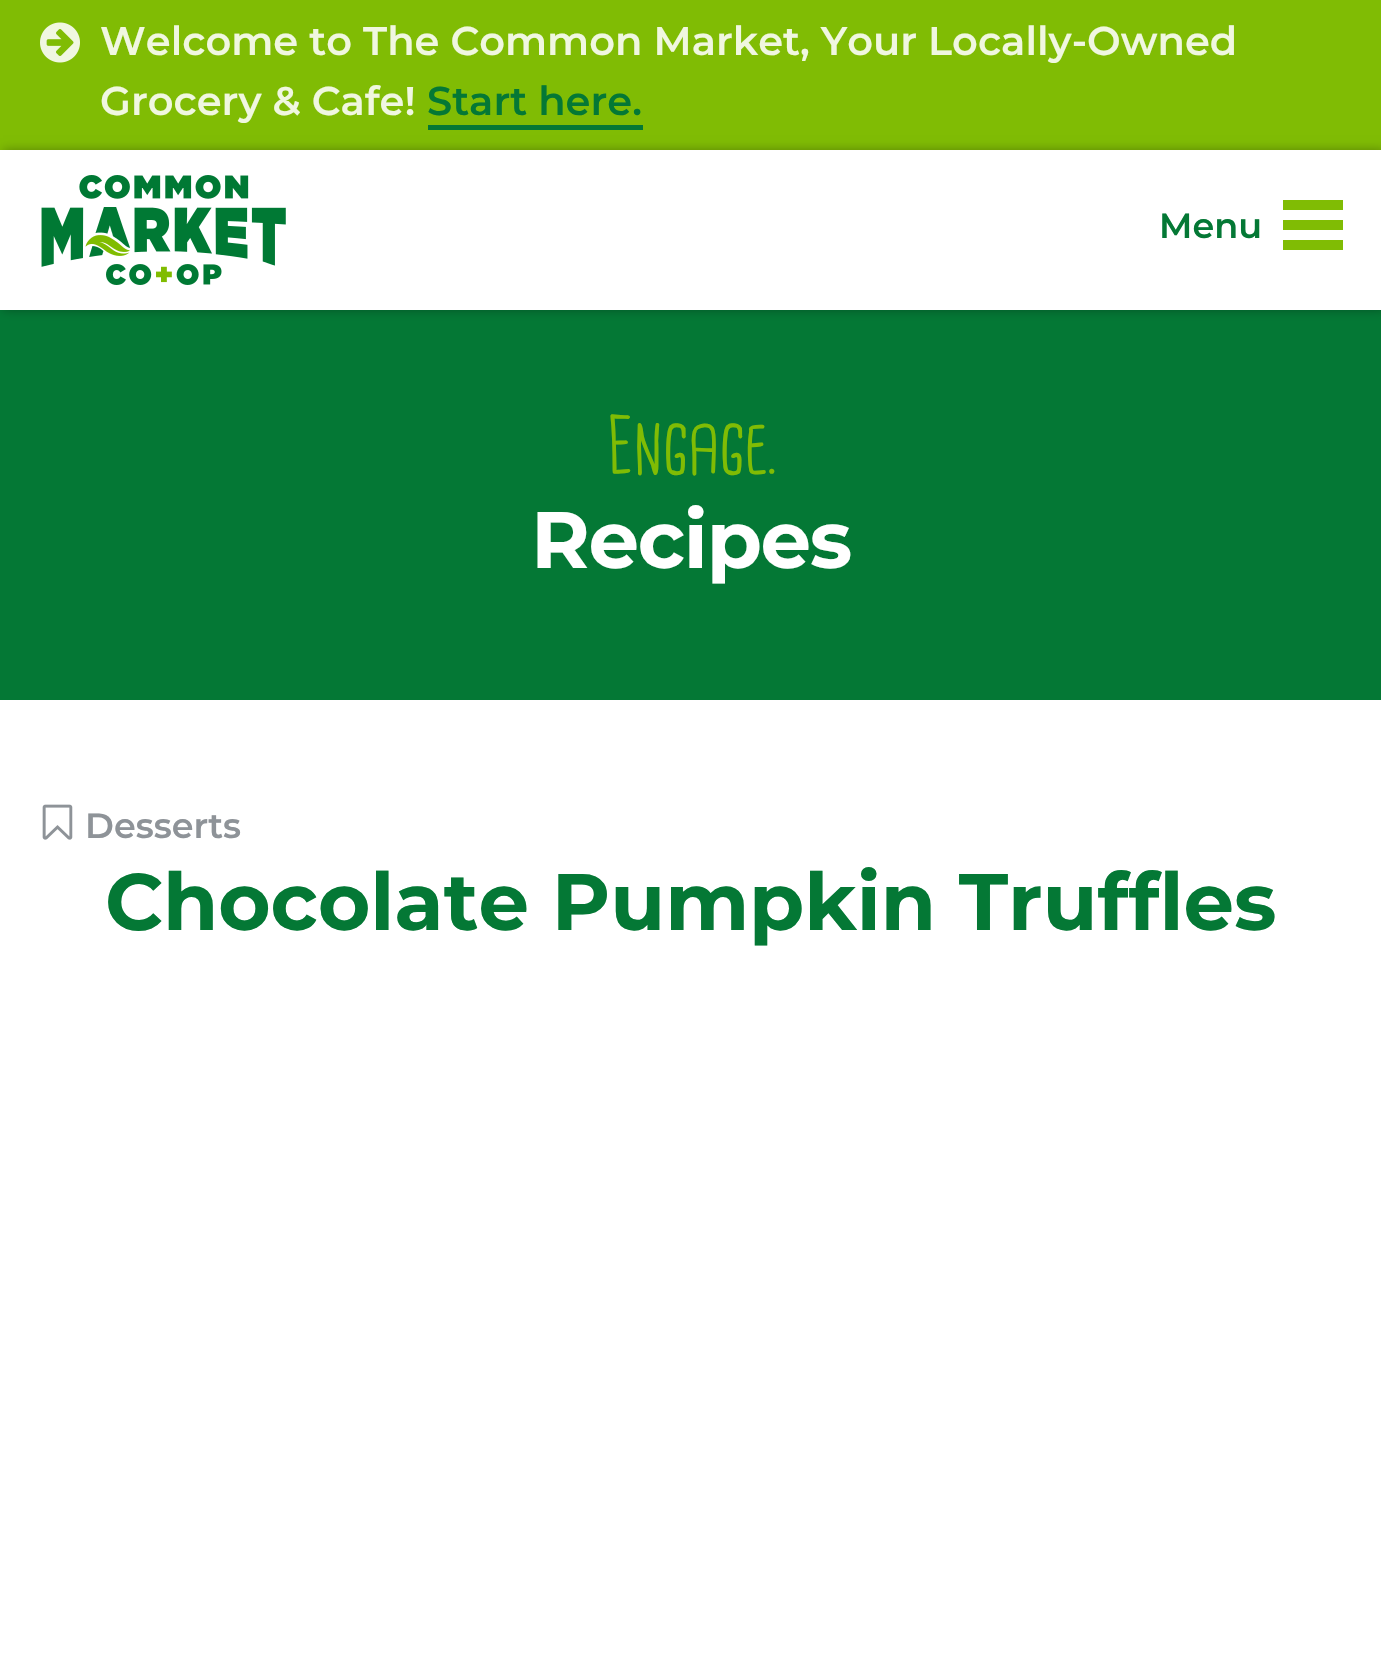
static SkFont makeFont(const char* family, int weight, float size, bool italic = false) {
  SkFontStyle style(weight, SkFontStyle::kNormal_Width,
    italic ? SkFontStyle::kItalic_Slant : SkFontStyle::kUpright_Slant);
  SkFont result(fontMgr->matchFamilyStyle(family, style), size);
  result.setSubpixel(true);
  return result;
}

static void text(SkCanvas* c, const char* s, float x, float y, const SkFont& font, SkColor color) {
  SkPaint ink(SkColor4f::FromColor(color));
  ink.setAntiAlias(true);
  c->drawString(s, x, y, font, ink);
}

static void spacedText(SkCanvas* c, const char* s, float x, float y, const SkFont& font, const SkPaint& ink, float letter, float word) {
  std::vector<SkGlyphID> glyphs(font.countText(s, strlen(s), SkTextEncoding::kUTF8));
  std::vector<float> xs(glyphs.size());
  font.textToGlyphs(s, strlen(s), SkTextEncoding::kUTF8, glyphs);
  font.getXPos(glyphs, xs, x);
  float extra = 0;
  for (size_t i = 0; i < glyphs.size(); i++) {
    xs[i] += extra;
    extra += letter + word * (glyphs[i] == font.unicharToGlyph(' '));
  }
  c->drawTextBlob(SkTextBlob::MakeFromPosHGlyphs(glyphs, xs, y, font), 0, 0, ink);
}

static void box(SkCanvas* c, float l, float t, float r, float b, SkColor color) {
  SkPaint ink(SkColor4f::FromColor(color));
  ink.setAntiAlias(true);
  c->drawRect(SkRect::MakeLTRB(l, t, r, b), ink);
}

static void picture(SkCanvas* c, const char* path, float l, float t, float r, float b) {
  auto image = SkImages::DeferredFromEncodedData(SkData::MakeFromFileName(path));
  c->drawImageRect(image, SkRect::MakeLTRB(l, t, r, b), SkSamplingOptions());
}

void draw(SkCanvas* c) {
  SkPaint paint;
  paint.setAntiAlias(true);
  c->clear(0xffffffff);
  box(c, 0, 0, 1381, 150, 0xff80bc04);
  picture(c, "img_01.png", 40, 22, 80, 63);
  SkFont face1 = makeFont("Montserrat", 600, 40);
  text(c, "Welcome to The Common Market, Your Locally-Owned", 100, 55, face1, 0xfff0f7e0);
  text(c, "Grocery & Cafe!", 100, 115, face1, 0xfff0f7e0);
  text(c, "Start here.", 427, 115, face1, 0xff047835);
  box(c, 428, 125, 643, 130, 0xff047835);
  box(c, 0, 310, 1381, 700, 0xff047835);
  c->save();
  c->clipPath(SkPathBuilder(SkPathFillType::kEvenOdd).moveTo(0, 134).lineTo(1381, 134).lineTo(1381, 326).lineTo(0, 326).close().moveTo(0, 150).lineTo(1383, 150).lineTo(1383, 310).lineTo(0, 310).close().detach(), true);
  paint.setColor(0x4d000000);
  paint.setMaskFilter(SkMaskFilter::MakeBlur(kNormal_SkBlurStyle, 5));
  c->drawRect(SkRect::MakeLTRB(3, 150, 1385, 310), paint);
  paint.setMaskFilter(nullptr);
  c->restore();
  picture(c, "img_02.png", 41, 175, 286, 285);
  SkFont face2 = makeFont("Montserrat", 600, 35);
  text(c, "Menu", 1159, 238, face2, 0xff047835);
  box(c, 1283, 220, 1343, 230, 0xff80bc04);
  box(c, 1283, 200, 1343, 210, 0xff80bc04);
  box(c, 1283, 240, 1343, 250, 0xff80bc04);
  SkFont face3 = makeFont("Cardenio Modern", 400, 80);
  text(c, "Engage.", 606, 475, face3, 0xff80bc04);
  SkFont face4 = makeFont("Montserrat", 700, 80);
  paint.setColor(0xffffffff);
  spacedText(c, "Recipes", 531, 568, face4, paint, -1.25f, 0);
  picture(c, "img_03.png", 42, 804, 73, 840);
  text(c, "Desserts", 85, 838, face2, 0xff8e9398);
  text(c, "Chocolate Pumpkin Truffles", 105, 930, face4, 0xff047835);
}
